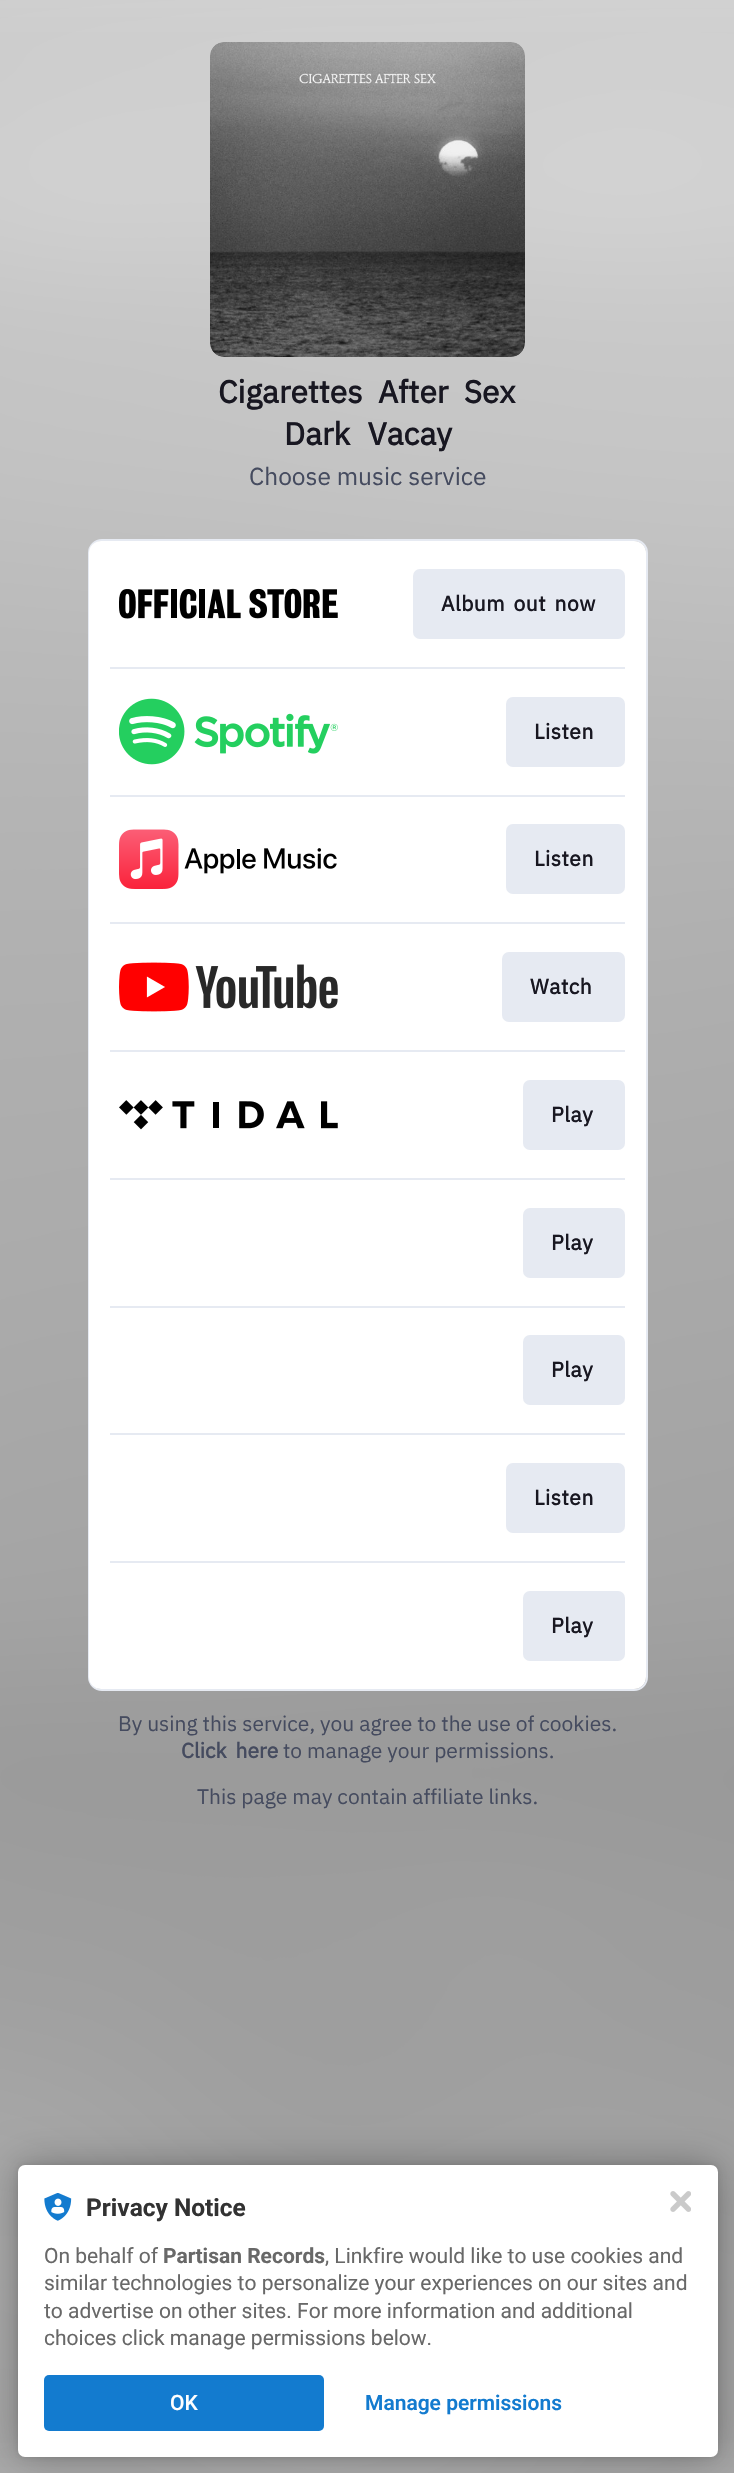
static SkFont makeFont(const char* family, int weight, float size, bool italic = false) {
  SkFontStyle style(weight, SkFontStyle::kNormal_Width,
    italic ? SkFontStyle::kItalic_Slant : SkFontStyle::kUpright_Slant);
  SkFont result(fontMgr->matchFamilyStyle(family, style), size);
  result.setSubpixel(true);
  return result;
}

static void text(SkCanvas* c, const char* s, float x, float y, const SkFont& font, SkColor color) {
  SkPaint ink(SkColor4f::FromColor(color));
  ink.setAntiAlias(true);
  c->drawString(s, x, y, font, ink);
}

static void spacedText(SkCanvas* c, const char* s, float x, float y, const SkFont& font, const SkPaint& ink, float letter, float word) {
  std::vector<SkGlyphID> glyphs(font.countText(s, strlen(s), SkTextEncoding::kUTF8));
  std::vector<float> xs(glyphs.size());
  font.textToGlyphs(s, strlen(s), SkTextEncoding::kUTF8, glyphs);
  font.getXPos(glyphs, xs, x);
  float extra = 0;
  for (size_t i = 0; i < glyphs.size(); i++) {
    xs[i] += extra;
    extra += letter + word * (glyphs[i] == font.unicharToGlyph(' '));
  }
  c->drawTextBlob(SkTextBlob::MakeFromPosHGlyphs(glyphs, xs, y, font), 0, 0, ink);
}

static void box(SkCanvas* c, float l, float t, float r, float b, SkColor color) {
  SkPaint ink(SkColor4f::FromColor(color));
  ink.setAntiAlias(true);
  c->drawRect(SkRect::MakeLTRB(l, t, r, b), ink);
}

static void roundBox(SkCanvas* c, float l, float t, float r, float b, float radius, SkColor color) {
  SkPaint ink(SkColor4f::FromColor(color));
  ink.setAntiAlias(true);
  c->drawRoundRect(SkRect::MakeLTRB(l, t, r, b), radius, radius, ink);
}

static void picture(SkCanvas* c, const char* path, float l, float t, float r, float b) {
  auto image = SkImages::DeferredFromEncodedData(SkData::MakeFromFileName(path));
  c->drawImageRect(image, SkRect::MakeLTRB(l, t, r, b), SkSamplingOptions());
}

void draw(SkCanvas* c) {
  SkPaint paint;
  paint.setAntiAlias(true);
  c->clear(0xffffffff);
  picture(c, "img_01.png", 0, 0, 734, 2473);
  picture(c, "img_02.png", 210, 42, 525, 357);
  SkFont face1 = makeFont("IBM Plex Sans", 700, 31.5f);
  paint.setColor(0xff181721);
  spacedText(c, "Cigarettes After Sex", 218, 403, face1, paint, 0, 8);
  spacedText(c, "Dark Vacay", 284, 445, face1, paint, 0, 10);
  SkFont face2 = makeFont("IBM Plex Sans", 400, 24.5f);
  text(c, "Choose music service", 249, 485, face2, 0xff454b5f);
  paint.setStyle(SkPaint::kStroke_Style);
  paint.setStrokeWidth(2);
  paint.setColor(0xffe6eaf2);
  c->drawRoundRect(SkRect::MakeLTRB(89, 540, 647, 1690), 13, 13, paint);
  roundBox(c, 89, 541, 646, 1689, 12, 0xffffffff);
  picture(c, "img_03.png", 119, 588, 338, 619);
  roundBox(c, 413, 569, 625, 639, 7, 0xffe6eaf2);
  SkFont face3 = makeFont("IBM Plex Sans", 700, 21);
  paint.setStyle(SkPaint::kFill_Style);
  paint.setColor(0xff181721);
  spacedText(c, "Album out now", 441, 611, face3, paint, 0.5f, 3);
  box(c, 110, 667, 625, 669, 0xffe6eaf2);
  picture(c, "img_04.png", 119, 698, 338, 765);
  roundBox(c, 506, 697, 625, 767, 7, 0xffe6eaf2);
  spacedText(c, "Listen", 534, 739, face3, paint, 0.5f, 0);
  box(c, 110, 795, 625, 797, 0xffe6eaf2);
  picture(c, "img_05.png", 119, 829, 337, 889);
  roundBox(c, 506, 824, 625, 894, 7, 0xffe6eaf2);
  spacedText(c, "Listen", 534, 866, face3, paint, 0.5f, 0);
  box(c, 110, 922, 625, 924, 0xffe6eaf2);
  picture(c, "img_06.png", 119, 962, 338, 1012);
  roundBox(c, 502, 952, 625, 1022, 7, 0xffe6eaf2);
  spacedText(c, "Watch", 530, 994, face3, paint, 0.5f, 0);
  box(c, 110, 1050, 625, 1052, 0xffe6eaf2);
  picture(c, "img_07.png", 119, 1100, 338, 1130);
  roundBox(c, 523, 1080, 625, 1150, 7, 0xffe6eaf2);
  spacedText(c, "Play", 551, 1122, face3, paint, 0.5f, 0);
  box(c, 110, 1178, 625, 1180, 0xffe6eaf2);
  roundBox(c, 523, 1208, 625, 1278, 7, 0xffe6eaf2);
  spacedText(c, "Play", 551, 1250, face3, paint, 0.5f, 0);
  box(c, 110, 1306, 625, 1308, 0xffe6eaf2);
  roundBox(c, 523, 1335, 625, 1405, 7, 0xffe6eaf2);
  spacedText(c, "Play", 551, 1377, face3, paint, 0.5f, 0);
  box(c, 110, 1433, 625, 1435, 0xffe6eaf2);
  roundBox(c, 506, 1463, 625, 1533, 7, 0xffe6eaf2);
  spacedText(c, "Listen", 534, 1505, face3, paint, 0.5f, 0);
  box(c, 110, 1561, 625, 1563, 0xffe6eaf2);
  roundBox(c, 523, 1591, 625, 1661, 7, 0xffe6eaf2);
  spacedText(c, "Play", 551, 1633, face3, paint, 0.5f, 0);
  SkFont face4 = makeFont("IBM Plex Sans", 400, 21);
  text(c, "By using this service, you agree to the use of cookies.", 118, 1731, face4, 0xff454b5f);
  paint.setColor(0xff454b5f);
  spacedText(c, "Click here", 181, 1758, face3, paint, 0, 4);
  text(c, "to manage your permissions.", 283, 1758, face4, 0xff454b5f);
  text(c, "This page may contain affiliate links.", 197, 1804, face4, 0xff454b5f);
  paint.setColor(0x1f000000);
  paint.setMaskFilter(SkMaskFilter::MakeBlur(kNormal_SkBlurStyle, 3.5f));
  c->drawRoundRect(SkRect::MakeLTRB(18, 2165, 718, 2457), 7, 7, paint);
  paint.setMaskFilter(nullptr);
  paint.setColor(0x4d000000);
  paint.setMaskFilter(SkMaskFilter::MakeBlur(kNormal_SkBlurStyle, 21));
  c->drawRoundRect(SkRect::MakeLTRB(18, 2165, 718, 2457), 7, 7, paint);
  paint.setMaskFilter(nullptr);
  roundBox(c, 18, 2165, 718, 2457, 7, 0xffffffff);
  picture(c, "img_08.png", 670, 2191, 691, 2212);
  picture(c, "img_09.png", 44, 2193, 72, 2221);
  SkFont face5 = makeFont("Roboto", 700, 24.5f);
  text(c, "Privacy Notice", 86, 2216, face5, 0xff323232);
  SkFont face6 = makeFont("Roboto", 400, 21);
  text(c, "On behalf of", 44, 2263, face6, 0xff686868);
  SkFont face7 = makeFont("Roboto", 700, 21);
  text(c, "Partisan Records", 163, 2263, face7, 0xff686868);
  text(c, ", Linkfire would like to use cookies and", 325, 2263, face6, 0xff686868);
  text(c, "similar technologies to personalize your experiences on our sites and", 44, 2290, face6, 0xff686868);
  text(c, "to advertise on other sites. For more information and additional", 44, 2318, face6, 0xff686868);
  text(c, "choices click manage permissions below.", 44, 2345, face6, 0xff686868);
  roundBox(c, 44, 2375, 324, 2431, 5, 0xff137bcf);
  SkFont face8 = makeFont("Roboto", 500, 21);
  text(c, "OK", 170, 2410, face8, 0xffffffff);
  SkFont face9 = makeFont("Roboto", 600, 21);
  text(c, "Manage permissions", 365, 2410, face9, 0xff137bcf);
}
